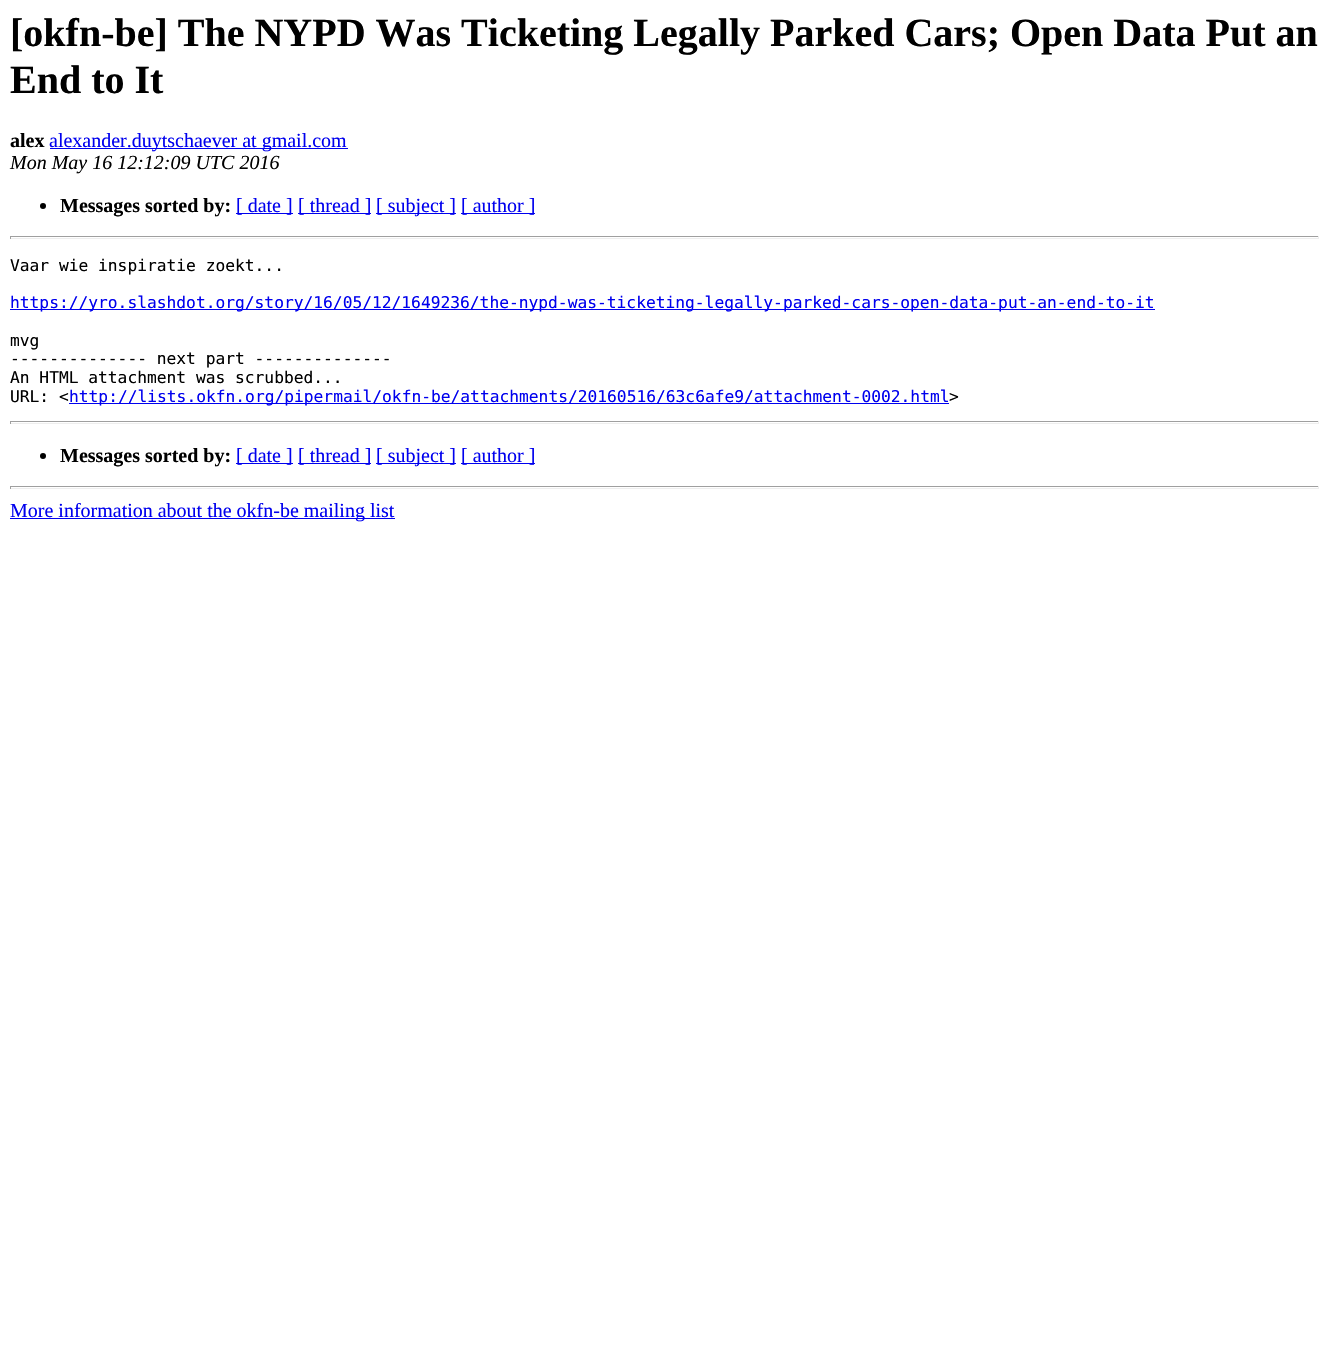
static SkFont makeFont(const char* family, int weight, float size, bool italic = false) {
  SkFontStyle style(weight, SkFontStyle::kNormal_Width,
    italic ? SkFontStyle::kItalic_Slant : SkFontStyle::kUpright_Slant);
  SkFont result(fontMgr->matchFamilyStyle(family, style), size);
  result.setSubpixel(true);
  return result;
}

static void text(SkCanvas* c, const char* s, float x, float y, const SkFont& font, SkColor color) {
  SkPaint ink(SkColor4f::FromColor(color));
  ink.setAntiAlias(true);
  c->drawString(s, x, y, font, ink);
}

static void box(SkCanvas* c, float l, float t, float r, float b, SkColor color) {
  SkPaint ink(SkColor4f::FromColor(color));
  ink.setAntiAlias(true);
  c->drawRect(SkRect::MakeLTRB(l, t, r, b), ink);
}

void draw(SkCanvas* c) {
  SkPaint paint;
  paint.setAntiAlias(true);
  c->clear(0xffffffff);
  SkFont face1 = makeFont("Liberation Serif", 700, 40);
  text(c, "[okfn-be] The NYPD Was Ticketing Legally Parked Cars; Open Data Put an", 10, 46, face1, 0xff000000);
  text(c, "End to It", 10, 93, face1, 0xff000000);
  SkFont face2 = makeFont("Liberation Serif", 700, 20);
  text(c, "alex", 10, 147, face2, 0xff000000);
  box(c, 50, 148, 348, 149, 0xff0000ee);
  SkFont face3 = makeFont("Liberation Serif", 400, 20);
  text(c, "alexander.duytschaever at gmail.com", 49, 147, face3, 0xff0000ee);
  SkFont face4 = makeFont("Liberation Serif", 400, 20, true);
  text(c, "Mon May 16 12:12:09 UTC 2016", 10, 169, face4, 0xff000000);
  paint.setColor(0xff000000);
  c->drawCircle(43, 206, 3, paint);
  text(c, "Messages sorted by:", 60, 212, face2, 0xff000000);
  box(c, 236, 213, 293, 214, 0xff0000ee);
  text(c, "[ date ]", 236, 212, face3, 0xff0000ee);
  box(c, 298, 213, 371, 214, 0xff0000ee);
  text(c, "[ thread ]", 298, 212, face3, 0xff0000ee);
  box(c, 376, 213, 456, 214, 0xff0000ee);
  text(c, "[ subject ]", 376, 212, face3, 0xff0000ee);
  box(c, 461, 213, 535, 214, 0xff0000ee);
  text(c, "[ author ]", 461, 212, face3, 0xff0000ee);
  box(c, 10, 236, 1319, 237, 0xff9f9f9f);
  box(c, 1318, 236, 1319, 239, 0xffeeeeee);
  box(c, 10, 238, 1319, 239, 0xffeeeeee);
  box(c, 10, 236, 11, 239, 0xff9f9f9f);
  SkFont face5 = makeFont("DejaVu Sans Mono", 400, 16.25f);
  text(c, "Vaar wie inspiratie zoekt...", 10, 271, face5, 0xff000000);
  box(c, 10, 309, 1155, 310, 0xff0000ee);
  text(c, "https://yro.slashdot.org/story/16/05/12/1649236/the-nypd-was-ticketing-legally-parked-cars-open-data-put-an-end-to-it", 10, 308, face5, 0xff0000ee);
  text(c, "mvg", 10, 346, face5, 0xff000000);
  text(c, "-------------- next part --------------", 10, 364, face5, 0xff000000);
  text(c, "An HTML attachment was scrubbed...", 10, 383, face5, 0xff000000);
  text(c, "URL: <", 10, 402, face5, 0xff000000);
  box(c, 69, 403, 949, 404, 0xff0000ee);
  text(c, "http://lists.okfn.org/pipermail/okfn-be/attachments/20160516/63c6afe9/attachment-0002.html", 69, 402, face5, 0xff0000ee);
  text(c, ">", 949, 402, face5, 0xff000000);
  box(c, 10, 421, 1319, 422, 0xff9f9f9f);
  box(c, 1318, 421, 1319, 424, 0xffeeeeee);
  box(c, 10, 423, 1319, 424, 0xffeeeeee);
  box(c, 10, 421, 11, 424, 0xff9f9f9f);
  c->drawCircle(43, 456, 3, paint);
  text(c, "Messages sorted by:", 60, 462, face2, 0xff000000);
  box(c, 236, 463, 293, 464, 0xff0000ee);
  text(c, "[ date ]", 236, 462, face3, 0xff0000ee);
  box(c, 298, 463, 371, 464, 0xff0000ee);
  text(c, "[ thread ]", 298, 462, face3, 0xff0000ee);
  box(c, 376, 463, 456, 464, 0xff0000ee);
  text(c, "[ subject ]", 376, 462, face3, 0xff0000ee);
  box(c, 461, 463, 535, 464, 0xff0000ee);
  text(c, "[ author ]", 461, 462, face3, 0xff0000ee);
  box(c, 10, 486, 1319, 487, 0xff9f9f9f);
  box(c, 1318, 486, 1319, 489, 0xffeeeeee);
  box(c, 10, 488, 1319, 489, 0xffeeeeee);
  box(c, 10, 486, 11, 489, 0xff9f9f9f);
  box(c, 10, 518, 395, 519, 0xff0000ee);
  text(c, "More information about the okfn-be mailing list", 10, 517, face3, 0xff0000ee);
}
